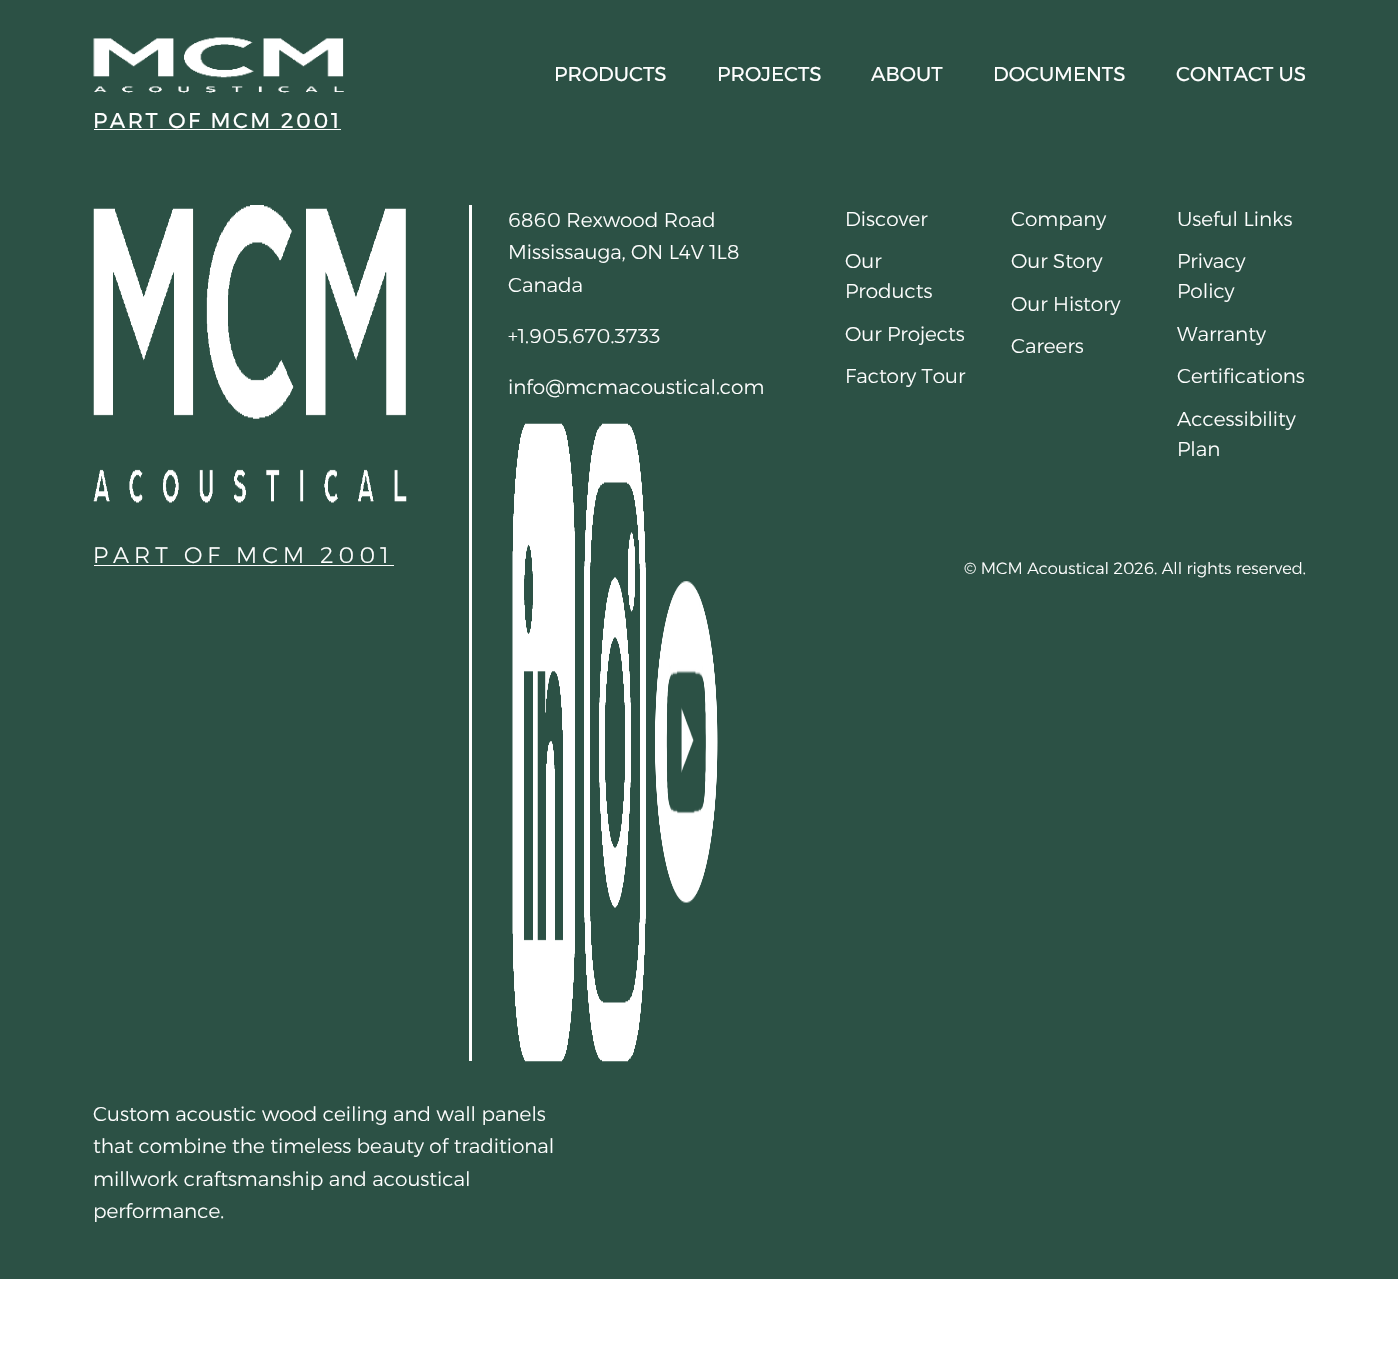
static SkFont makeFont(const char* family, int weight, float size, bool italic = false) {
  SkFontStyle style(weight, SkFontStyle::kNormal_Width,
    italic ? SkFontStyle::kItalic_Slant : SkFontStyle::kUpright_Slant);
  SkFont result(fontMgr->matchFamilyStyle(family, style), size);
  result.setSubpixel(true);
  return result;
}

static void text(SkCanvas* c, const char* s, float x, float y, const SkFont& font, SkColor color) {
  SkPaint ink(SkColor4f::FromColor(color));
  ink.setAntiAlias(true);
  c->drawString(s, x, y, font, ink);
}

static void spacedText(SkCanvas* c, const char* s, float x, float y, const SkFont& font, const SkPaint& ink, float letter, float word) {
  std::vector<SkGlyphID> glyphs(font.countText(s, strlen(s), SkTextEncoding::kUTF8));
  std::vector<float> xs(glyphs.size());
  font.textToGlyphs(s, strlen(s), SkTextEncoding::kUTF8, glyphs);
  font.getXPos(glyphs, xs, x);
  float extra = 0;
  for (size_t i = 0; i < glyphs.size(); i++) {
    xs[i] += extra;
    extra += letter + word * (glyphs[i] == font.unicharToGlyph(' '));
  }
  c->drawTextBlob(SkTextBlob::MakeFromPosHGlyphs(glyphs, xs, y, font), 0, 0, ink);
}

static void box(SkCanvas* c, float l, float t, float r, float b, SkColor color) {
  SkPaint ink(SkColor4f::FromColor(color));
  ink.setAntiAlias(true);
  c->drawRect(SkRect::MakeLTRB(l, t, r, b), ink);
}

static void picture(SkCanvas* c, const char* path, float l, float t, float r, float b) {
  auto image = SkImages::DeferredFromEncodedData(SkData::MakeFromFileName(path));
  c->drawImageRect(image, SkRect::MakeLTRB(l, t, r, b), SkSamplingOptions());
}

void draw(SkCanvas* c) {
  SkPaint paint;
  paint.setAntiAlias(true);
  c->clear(0xffffffff);
  box(c, 0, 0, 1398, 1279, 0xff2c5145);
  SkFont face1 = makeFont("Montserrat", 400, 20);
  text(c, "PRODUCTS", 554, 81, face1, 0xffffffff);
  text(c, "PROJECTS", 717, 81, face1, 0xffffffff);
  text(c, "ABOUT", 871, 81, face1, 0xffffffff);
  text(c, "DOCUMENTS", 993, 81, face1, 0xffffffff);
  text(c, "CONTACT US", 1176, 81, face1, 0xffffffff);
  picture(c, "img_01.png", 93, 37, 344, 93);
  SkFont face2 = makeFont("Montserrat", 400, 21.25f);
  paint.setColor(0xffffffff);
  spacedText(c, "PART OF MCM 2001", 93, 128, face2, paint, 2.5f, 0);
  box(c, 94, 129, 341, 130, 0xffffffff);
  box(c, 469, 205, 472, 1061, 0xffffffff);
  SkFont face3 = makeFont("Montserrat", 300, 20);
  text(c, "6860 Rexwood Road", 508, 227, face3, 0xffffffff);
  text(c, "Mississauga, ON L4V 1L8", 508, 259, face3, 0xffffffff);
  text(c, "Canada", 508, 292, face3, 0xffffffff);
  text(c, "+1.905.670.3733", 508, 343, face3, 0xffffffff);
  text(c, "info@mcmacoustical.com", 508, 394, face3, 0xffffffff);
  picture(c, "img_02.png", 512, 423, 575, 1062);
  picture(c, "img_03.png", 584, 423, 646, 1062);
  picture(c, "img_04.png", 655, 581, 718, 903);
  picture(c, "img_05.png", 93, 205, 407, 503);
  SkFont face4 = makeFont("Montserrat", 300, 22.5f);
  spacedText(c, "PART OF MCM 2001", 93, 563, face4, paint, 5, 0);
  box(c, 94, 565, 394, 566, 0xffffffff);
  text(c, "Custom acoustic wood ceiling and wall panels", 93, 1121, face3, 0xffffffff);
  text(c, "that combine the timeless beauty of traditional", 93, 1153, face3, 0xffffffff);
  text(c, "millwork craftsmanship and acoustical", 93, 1186, face3, 0xffffffff);
  text(c, "performance.", 93, 1218, face3, 0xffffffff);
  text(c, "Discover", 845, 226, face3, 0xffffffff);
  text(c, "Our", 845, 268, face3, 0xffffffff);
  text(c, "Products", 845, 298, face3, 0xffffffff);
  text(c, "Our Projects", 845, 341, face3, 0xffffffff);
  text(c, "Factory Tour", 845, 383, face3, 0xffffffff);
  text(c, "Company", 1011, 226, face3, 0xffffffff);
  text(c, "Our Story", 1011, 268, face3, 0xffffffff);
  text(c, "Our History", 1011, 311, face3, 0xffffffff);
  text(c, "Careers", 1011, 353, face3, 0xffffffff);
  text(c, "Useful Links", 1177, 226, face3, 0xffffffff);
  text(c, "Privacy", 1177, 268, face3, 0xffffffff);
  text(c, "Policy", 1177, 298, face3, 0xffffffff);
  text(c, "Warranty", 1177, 341, face3, 0xffffffff);
  text(c, "Certifications", 1177, 383, face3, 0xffffffff);
  text(c, "Accessibility", 1177, 426, face3, 0xffffffff);
  text(c, "Plan", 1177, 456, face3, 0xffffffff);
  SkFont face5 = makeFont("Montserrat", 300, 16.25f);
  text(c, "© MCM Acoustical 2026. All rights reserved.", 964, 574, face5, 0xffffffff);
}
